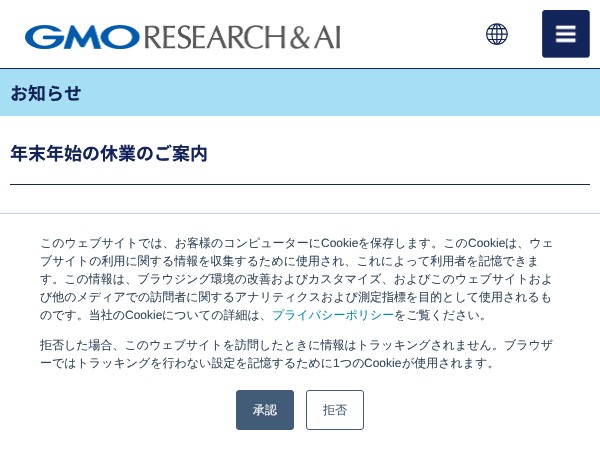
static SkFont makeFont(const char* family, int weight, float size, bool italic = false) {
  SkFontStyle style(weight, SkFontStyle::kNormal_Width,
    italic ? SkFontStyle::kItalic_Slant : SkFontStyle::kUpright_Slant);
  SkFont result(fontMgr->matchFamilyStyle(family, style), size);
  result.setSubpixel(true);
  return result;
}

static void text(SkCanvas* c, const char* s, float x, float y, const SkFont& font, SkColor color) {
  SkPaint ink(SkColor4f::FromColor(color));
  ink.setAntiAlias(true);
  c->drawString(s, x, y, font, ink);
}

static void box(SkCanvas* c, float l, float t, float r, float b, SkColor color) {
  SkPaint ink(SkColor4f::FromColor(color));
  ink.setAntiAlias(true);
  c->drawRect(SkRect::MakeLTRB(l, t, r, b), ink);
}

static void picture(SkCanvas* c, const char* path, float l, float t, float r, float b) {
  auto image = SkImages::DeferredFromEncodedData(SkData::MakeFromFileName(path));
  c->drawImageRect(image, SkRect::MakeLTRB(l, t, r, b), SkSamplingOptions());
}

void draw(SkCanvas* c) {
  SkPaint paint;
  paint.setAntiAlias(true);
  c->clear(0xffffffff);
  box(c, 0, 68, 600, 69, 0xff13245a);
  picture(c, "img_01.png", 25, 25, 340, 49);
  picture(c, "img_02.png", 486, 23, 508, 45);
  picture(c, "img_03.png", 542, 10, 590, 58);
  box(c, 0, 69, 600, 116, 0xffa6dff3);
  SkFont face1 = makeFont("Noto Sans JP", 700, 18);
  text(c, "お知らせ", 10, 100, face1, 0xff13245a);
  box(c, 10, 184, 590, 185, 0xff13245a);
  text(c, "年末年始の休業のご案内", 10, 160, face1, 0xff13245a);
  paint.setColor(0xffeaf0f6);
  paint.setMaskFilter(SkMaskFilter::MakeBlur(kNormal_SkBlurStyle, 1.5f));
  c->drawRect(SkRect::MakeLTRB(0, 212, 600, 455), paint);
  paint.setMaskFilter(nullptr);
  box(c, 0, 214, 600, 456, 0xffffffff);
  box(c, 0, 213, 600, 214, 0xffcbd6e2);
  SkFont face2 = makeFont("WenQuanYi Zen Hei", 500, 12);
  text(c, "このウェブサイトでは、お客様のコンピューターに", 40, 247, face2, 0xff33475b);
  SkFont face3 = makeFont("Liberation Sans", 400, 12);
  text(c, "Cookie", 321, 247, face3, 0xff33475b);
  text(c, "を保存します。この", 358, 247, face2, 0xff33475b);
  text(c, "Cookie", 468, 247, face3, 0xff33475b);
  text(c, "は、ウェ", 505, 247, face2, 0xff33475b);
  text(c, "ブサイトの利用に関する情報を収集するために使用され、これによって利用者を記憶できま", 40, 265, face2, 0xff33475b);
  text(c, "す。この情報は、ブラウジング環境の改善およびカスタマイズ、およびこのウェブサイトおよ", 40, 283, face2, 0xff33475b);
  text(c, "び他のメディアでの訪問者に関するアナリティクスおよび測定指標を目的として使用されるも", 40, 301, face2, 0xff33475b);
  text(c, "のです。当社の", 40, 319, face2, 0xff33475b);
  text(c, "Cookie", 125, 319, face3, 0xff33475b);
  text(c, "についての詳細は、", 162, 319, face2, 0xff33475b);
  text(c, "プライバシーポリシー", 272, 319, face2, 0xff0091ae);
  text(c, "をご覧ください。", 394, 319, face2, 0xff33475b);
  text(c, "拒否した場合、このウェブサイトを訪問したときに情報はトラッキングされません。ブラウザ", 40, 349, face2, 0xff33475b);
  text(c, "ーではトラッキングを行わない設定を記憶するために", 40, 367, face2, 0xff33475b);
  text(c, "1", 333, 367, face3, 0xff33475b);
  text(c, "つの", 340, 367, face2, 0xff33475b);
  text(c, "Cookie", 364, 367, face3, 0xff33475b);
  text(c, "が使用されます。", 402, 367, face2, 0xff33475b);
  paint.setColor(0xff425b76);
  c->drawRoundRect(SkRect::MakeLTRB(236.5f, 390.5f, 293.5f, 429.5f), 2.5f, 2.5f, paint);
  paint.setStyle(SkPaint::kStroke_Style);
  paint.setStrokeWidth(1);
  c->drawRoundRect(SkRect::MakeLTRB(236.5f, 390.5f, 293.5f, 429.5f), 2.5f, 2.5f, paint);
  text(c, "承認", 253, 414, face2, 0xffffffff);
  c->drawRoundRect(SkRect::MakeLTRB(306.5f, 390.5f, 363.5f, 429.5f), 2.5f, 2.5f, paint);
  text(c, "拒否", 323, 414, face2, 0xff425b76);
}
